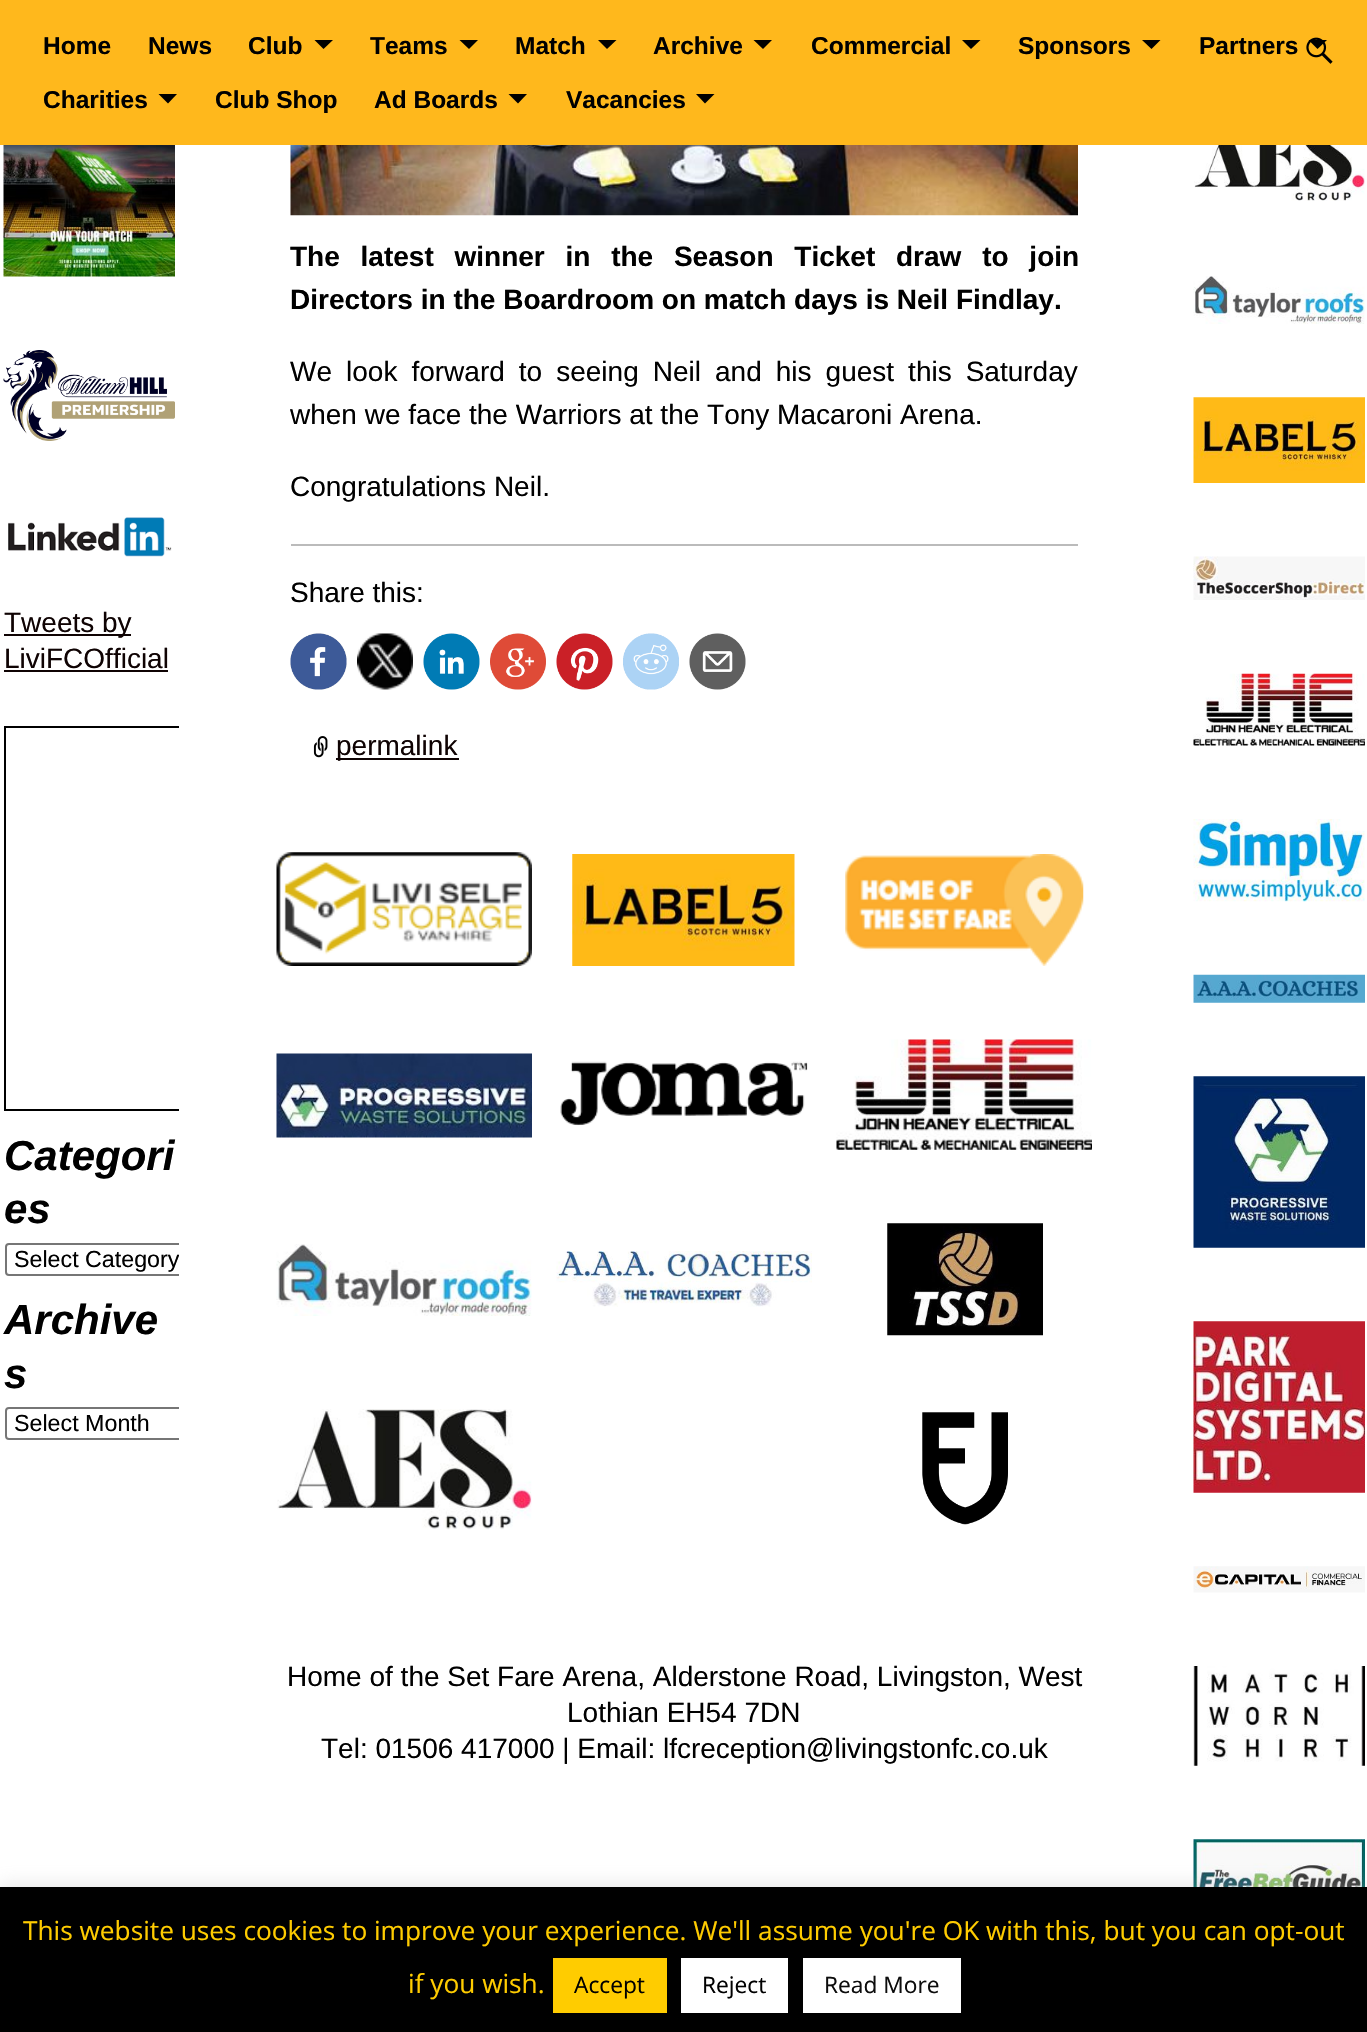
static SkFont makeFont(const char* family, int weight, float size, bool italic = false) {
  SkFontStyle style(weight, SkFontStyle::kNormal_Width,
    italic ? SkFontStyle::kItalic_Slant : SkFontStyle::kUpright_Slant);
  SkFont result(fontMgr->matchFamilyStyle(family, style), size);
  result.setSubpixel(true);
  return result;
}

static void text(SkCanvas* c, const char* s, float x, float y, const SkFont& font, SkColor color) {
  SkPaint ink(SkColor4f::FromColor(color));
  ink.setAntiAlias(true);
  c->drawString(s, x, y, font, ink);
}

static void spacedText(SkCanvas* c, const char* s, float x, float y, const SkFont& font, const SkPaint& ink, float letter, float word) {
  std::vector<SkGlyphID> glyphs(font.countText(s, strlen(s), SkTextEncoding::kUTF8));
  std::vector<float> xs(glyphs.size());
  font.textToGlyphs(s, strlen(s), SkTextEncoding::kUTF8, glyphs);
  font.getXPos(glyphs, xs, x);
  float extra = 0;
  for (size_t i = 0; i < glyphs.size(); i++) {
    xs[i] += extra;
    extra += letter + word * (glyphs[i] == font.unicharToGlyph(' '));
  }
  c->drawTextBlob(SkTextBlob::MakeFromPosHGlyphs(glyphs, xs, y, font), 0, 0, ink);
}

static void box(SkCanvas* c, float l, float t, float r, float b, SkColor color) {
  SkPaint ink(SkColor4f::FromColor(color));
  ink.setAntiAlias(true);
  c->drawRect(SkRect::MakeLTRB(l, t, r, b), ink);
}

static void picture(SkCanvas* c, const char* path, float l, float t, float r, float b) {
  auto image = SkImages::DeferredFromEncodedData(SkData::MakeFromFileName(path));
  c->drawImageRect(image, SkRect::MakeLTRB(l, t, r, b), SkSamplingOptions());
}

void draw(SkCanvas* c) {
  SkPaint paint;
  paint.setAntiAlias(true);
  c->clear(0xffffffff);
  box(c, 0, 0, 1367, 145, 0xffffb81c);
  SkFont face1 = makeFont("Liberation Sans", 700, 24.5f);
  text(c, "Home", 43, 54, face1, 0xff000000);
  text(c, "News", 148, 54, face1, 0xff000000);
  text(c, "Club", 248, 54, face1, 0xff000000);
  paint.setColor(0xff000000);
  c->drawPath(SkPathBuilder().moveTo(314.5f, 40).lineTo(333, 40).lineTo(323.5f, 49).close().detach(), paint);
  text(c, "Teams", 370, 54, face1, 0xff000000);
  c->drawPath(SkPathBuilder().moveTo(459.5f, 40).lineTo(478, 40).lineTo(469, 49).close().detach(), paint);
  text(c, "Match", 515, 54, face1, 0xff000000);
  c->drawPath(SkPathBuilder().moveTo(598, 40).lineTo(616.5f, 40).lineTo(607, 49).close().detach(), paint);
  text(c, "Archive", 653, 54, face1, 0xff000000);
  c->drawPath(SkPathBuilder().moveTo(753.5f, 40).lineTo(772, 40).lineTo(763, 49).close().detach(), paint);
  text(c, "Commercial", 811, 54, face1, 0xff000000);
  c->drawPath(SkPathBuilder().moveTo(962, 40).lineTo(980.5f, 40).lineTo(971, 49).close().detach(), paint);
  text(c, "Sponsors", 1018, 54, face1, 0xff000000);
  c->drawPath(SkPathBuilder().moveTo(1142, 40).lineTo(1160.5f, 40).lineTo(1151.5f, 49).close().detach(), paint);
  text(c, "Partners", 1199, 54, face1, 0xff000000);
  c->drawPath(SkPathBuilder().moveTo(1308.5f, 40).lineTo(1327, 40).lineTo(1317.5f, 49).close().detach(), paint);
  text(c, "Charities", 43, 108, face1, 0xff000000);
  c->drawPath(SkPathBuilder().moveTo(158.5f, 94).lineTo(177, 94).lineTo(168, 103.5f).close().detach(), paint);
  text(c, "Club Shop", 215, 108, face1, 0xff000000);
  text(c, "Ad Boards", 374, 108, face1, 0xff000000);
  c->drawPath(SkPathBuilder().moveTo(508.5f, 94).lineTo(527, 94).lineTo(518, 103.5f).close().detach(), paint);
  text(c, "Vacancies", 566, 108, face1, 0xff000000);
  c->drawPath(SkPathBuilder().moveTo(696, 94).lineTo(714.5f, 94).lineTo(705, 103.5f).close().detach(), paint);
  picture(c, "img_01.png", 1306, 37, 1333, 64);
  picture(c, "img_02.png", 3, 145, 175, 277);
  picture(c, "img_03.png", 3, 350, 175, 441);
  picture(c, "img_04.png", 8, 517, 172, 557);
  box(c, 4, 634, 131, 636, 0xff0f0303);
  SkFont face2 = makeFont("Liberation Sans", 400, 28);
  text(c, "Tweets by", 4, 632, face2, 0xff0f0303);
  text(c, "LiviFCOfficial", 4, 668, face2, 0xff0f0303);
  box(c, 4, 670, 168, 672, 0xff0f0303);
  picture(c, "img_13.png", 313, 736, 328, 758);
  box(c, 336, 758, 459, 760, 0xff0f0303);
  text(c, "permalink", 336, 755, face2, 0xff0f0303);
  picture(c, "img_14.png", 276, 852, 532, 966);
  picture(c, "img_17.png", 276, 1053, 532, 1138);
  c->save();
  c->clipRect(SkRect::MakeLTRB(0, 723, 179, 1129));
  paint.setStyle(SkPaint::kStroke_Style);
  paint.setStrokeWidth(2);
  c->drawRect(SkRect::MakeLTRB(5, 727, 388, 1110), paint);
  c->restore();
  SkFont face3 = makeFont("Liberation Sans", 700, 42, true);
  text(c, "Categori", 4, 1170, face3, 0xff000000);
  text(c, "es", 4, 1223, face3, 0xff000000);
  picture(c, "img_20.png", 276, 1244, 532, 1316);
  c->save();
  c->clipRect(SkRect::MakeLTRB(0, 1129, 179, 1293));
  paint.setColor(0xff767676);
  c->drawRoundRect(SkRect::MakeLTRB(6, 1244, 298, 1275), 3, 3, paint);
  c->restore();
  c->save();
  c->clipRect(SkRect::MakeLTRB(14, 1244, 179, 1274));
  SkFont face4 = makeFont("Liberation Sans", 400, 23.25f);
  text(c, "Select Category", 14, 1267, face4, 0xff000000);
  c->restore();
  text(c, "Archive", 4, 1334, face3, 0xff000000);
  text(c, "s", 4, 1388, face3, 0xff000000);
  c->save();
  c->clipRect(SkRect::MakeLTRB(0, 1293, 179, 1458));
  c->drawRoundRect(SkRect::MakeLTRB(6, 1408, 216, 1439), 3, 3, paint);
  c->restore();
  text(c, "Select Month", 14, 1431, face4, 0xff000000);
  picture(c, "img_05.png", 290, 145, 1078, 216);
  SkFont face5 = makeFont("Liberation Sans", 700, 28);
  paint.setStyle(SkPaint::kFill_Style);
  paint.setColor(0xff000000);
  spacedText(c, "The latest winner in the Season Ticket draw to join", 290, 266, face5, paint, 0, 13);
  text(c, "Directors in the Boardroom on match days is Neil Findlay.", 290, 309, face5, 0xff000000);
  spacedText(c, "We look forward to seeing Neil and his guest this Saturday", 290, 381, face2, paint, 0, 6.25f);
  text(c, "when we face the Warriors at the Tony Macaroni Arena.", 290, 424, face2, 0xff000000);
  text(c, "Congratulations Neil.", 290, 496, face2, 0xff000000);
  box(c, 291, 544, 1078, 546, 0xffbbbbbb);
  text(c, "Share this:", 290, 602, face2, 0xff000000);
  picture(c, "img_06.png", 290, 633, 347, 690);
  picture(c, "img_07.png", 357, 633, 413, 690);
  picture(c, "img_08.png", 423, 633, 480, 690);
  picture(c, "img_09.png", 490, 633, 546, 690);
  picture(c, "img_10.png", 556, 633, 613, 690);
  picture(c, "img_11.png", 623, 633, 679, 690);
  picture(c, "img_12.png", 689, 633, 746, 690);
  picture(c, "img_15.png", 572, 854, 795, 966);
  picture(c, "img_16.png", 845, 854, 1084, 966);
  picture(c, "img_18.png", 560, 1061, 808, 1126);
  picture(c, "img_19.png", 836, 1039, 1092, 1150);
  picture(c, "img_21.png", 556, 1251, 812, 1307);
  picture(c, "img_22.png", 887, 1223, 1043, 1336);
  picture(c, "img_23.png", 277, 1409, 532, 1530);
  picture(c, "img_24.png", 922, 1412, 1008, 1525);
  text(c, "Home of the Set Fare Arena, Alderstone Road, Livingston, West", 287, 1686, face2, 0xff000000);
  text(c, "Lothian EH54 7DN", 567, 1722, face2, 0xff000000);
  text(c, "Tel: 01506 417000 | Email: lfcreception@livingstonfc.co.uk", 321, 1758, face2, 0xff000000);
  picture(c, "img_25.png", 1194, 145, 1365, 201);
  picture(c, "img_26.png", 1193, 276, 1365, 324);
  picture(c, "img_27.png", 1193, 397, 1365, 483);
  picture(c, "img_28.png", 1193, 556, 1365, 600);
  picture(c, "img_29.png", 1193, 673, 1365, 746);
  picture(c, "img_30.png", 1193, 819, 1365, 902);
  picture(c, "img_31.png", 1193, 974, 1365, 1003);
  picture(c, "img_32.png", 1193, 1076, 1365, 1248);
  picture(c, "img_33.png", 1193, 1321, 1365, 1493);
  picture(c, "img_34.png", 1193, 1566, 1365, 1593);
  picture(c, "img_35.png", 1193, 1666, 1365, 1766);
  picture(c, "img_36.png", 1193, 1839, 1365, 1887);
  paint.setColor(0x4dacabab);
  paint.setMaskFilter(SkMaskFilter::MakeBlur(kNormal_SkBlurStyle, 9));
  c->drawRect(SkRect::MakeLTRB(0, 1885, 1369, 2032), paint);
  paint.setMaskFilter(nullptr);
  box(c, 0, 1887, 1367, 2032, 0xff000000);
  SkFont face6 = makeFont("Open Sans", 400, 26.25f);
  text(c, "This website uses cookies to improve your experience. We'll assume you're OK with this, but you can opt-out", 23, 1940, face6, 0xffffcc00);
  text(c, "if you wish.", 408, 1993, face6, 0xffffcc00);
  box(c, 553, 1958, 667, 2013, 0xffffcc00);
  SkFont face7 = makeFont("Open Sans", 400, 22.75f);
  text(c, "Accept", 574, 1993, face7, 0xff000000);
  box(c, 681, 1958, 788, 2013, 0xffffffff);
  text(c, "Reject", 702, 1993, face7, 0xff000000);
  box(c, 803, 1958, 961, 2013, 0xffffffff);
  text(c, "Read More", 824, 1993, face7, 0xff0c0c0c);
}
